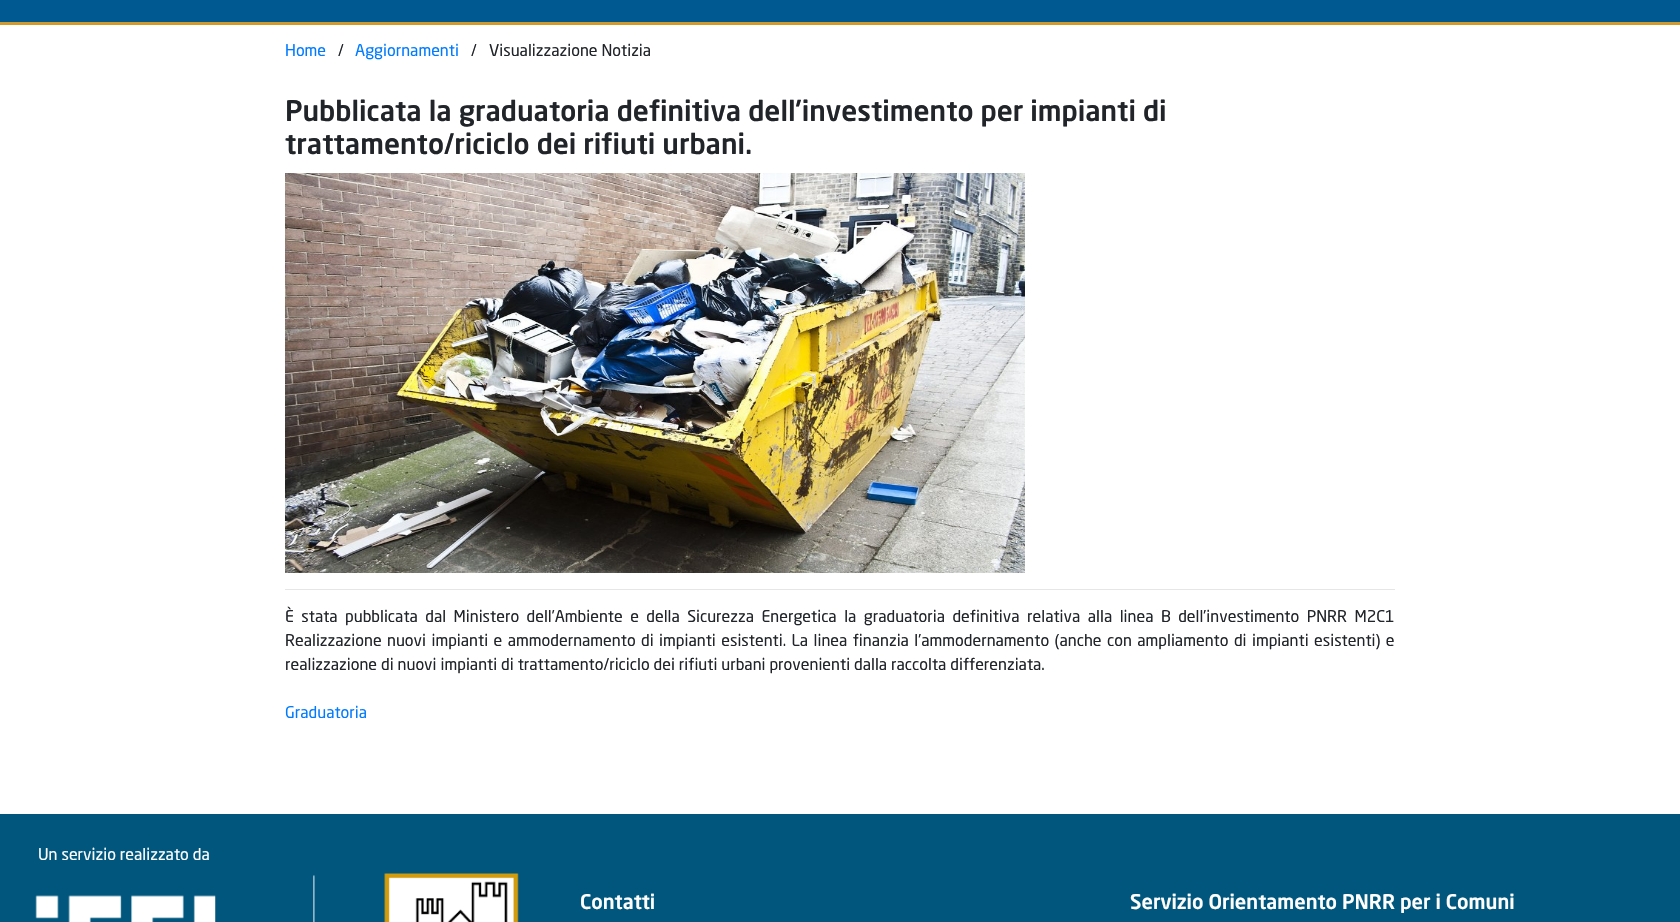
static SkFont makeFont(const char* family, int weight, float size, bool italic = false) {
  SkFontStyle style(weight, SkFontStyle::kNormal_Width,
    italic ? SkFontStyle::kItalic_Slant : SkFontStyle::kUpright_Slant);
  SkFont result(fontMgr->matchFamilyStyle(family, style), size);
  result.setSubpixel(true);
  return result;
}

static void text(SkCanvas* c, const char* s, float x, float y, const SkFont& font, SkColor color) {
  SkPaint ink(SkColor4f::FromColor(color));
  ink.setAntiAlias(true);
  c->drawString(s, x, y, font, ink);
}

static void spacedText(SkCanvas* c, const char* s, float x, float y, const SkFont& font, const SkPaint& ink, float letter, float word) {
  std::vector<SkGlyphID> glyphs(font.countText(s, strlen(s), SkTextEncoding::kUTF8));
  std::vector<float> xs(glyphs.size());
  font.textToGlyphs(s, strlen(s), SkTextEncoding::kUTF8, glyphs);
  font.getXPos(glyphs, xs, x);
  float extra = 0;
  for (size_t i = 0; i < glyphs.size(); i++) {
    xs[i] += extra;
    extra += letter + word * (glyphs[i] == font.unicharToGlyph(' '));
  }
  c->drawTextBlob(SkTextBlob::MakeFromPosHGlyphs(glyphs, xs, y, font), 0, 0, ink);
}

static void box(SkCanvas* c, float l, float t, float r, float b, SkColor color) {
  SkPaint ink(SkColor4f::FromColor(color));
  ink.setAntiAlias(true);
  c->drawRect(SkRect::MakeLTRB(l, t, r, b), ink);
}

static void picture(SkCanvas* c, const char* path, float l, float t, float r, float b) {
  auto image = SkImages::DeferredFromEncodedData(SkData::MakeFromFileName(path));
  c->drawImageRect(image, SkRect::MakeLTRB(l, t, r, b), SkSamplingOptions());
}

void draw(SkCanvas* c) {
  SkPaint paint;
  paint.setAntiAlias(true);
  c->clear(0xffffffff);
  box(c, 0, 0, 1680, 22, 0xff005991);
  box(c, 0, 22, 1680, 25, 0xffd09b2c);
  SkFont face1 = makeFont("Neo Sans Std", 400, 16);
  text(c, "Home", 285, 56, face1, 0xff007bff);
  text(c, "/", 338, 56, face1, 0xff212529);
  text(c, "Aggiornamenti", 355, 56, face1, 0xff007bff);
  text(c, "/", 471, 56, face1, 0xff212529);
  text(c, "Visualizzazione Notizia", 489, 56, face1, 0xff212529);
  SkFont face2 = makeFont("Neo Sans Std", 500, 28);
  text(c, "Pubblicata la graduatoria definitiva dell’investimento per impianti di", 285, 121, face2, 0xff212529);
  text(c, "trattamento/riciclo dei rifiuti urbani.", 285, 154, face2, 0xff212529);
  picture(c, "img_01.png", 285, 173, 1025, 573);
  box(c, 285, 589, 1395, 590, 0xffe6e6e6);
  paint.setColor(0xff212529);
  spacedText(c, "È stata pubblicata dal Ministero dell’Ambiente e della Sicurezza Energetica la graduatoria definitiva relativa alla linea B dell’investimento PNRR M2C1", 285, 622, face1, paint, 0, 3.5f);
  spacedText(c, "Realizzazione nuovi impianti e ammodernamento di impianti esistenti. La linea finanzia l’ammodernamento (anche con ampliamento di impianti esistenti) e", 285, 646, face1, paint, 0, 1.5f);
  text(c, "realizzazione di nuovi impianti di trattamento/riciclo dei rifiuti urbani provenienti dalla raccolta differenziata.", 285, 670, face1, 0xff212529);
  text(c, "Graduatoria", 285, 718, face1, 0xff007bff);
  box(c, 0, 814, 1680, 922, 0xff00567c);
  text(c, "Un servizio realizzato da", 38, 860, face1, 0xffffffff);
  picture(c, "img_02.png", 35, 873, 519, 922);
  SkFont face3 = makeFont("Neo Sans Std", 500, 20);
  text(c, "Contatti", 580, 909, face3, 0xffffffff);
  text(c, "Servizio Orientamento PNRR per i Comuni", 1130, 909, face3, 0xffffffff);
}
